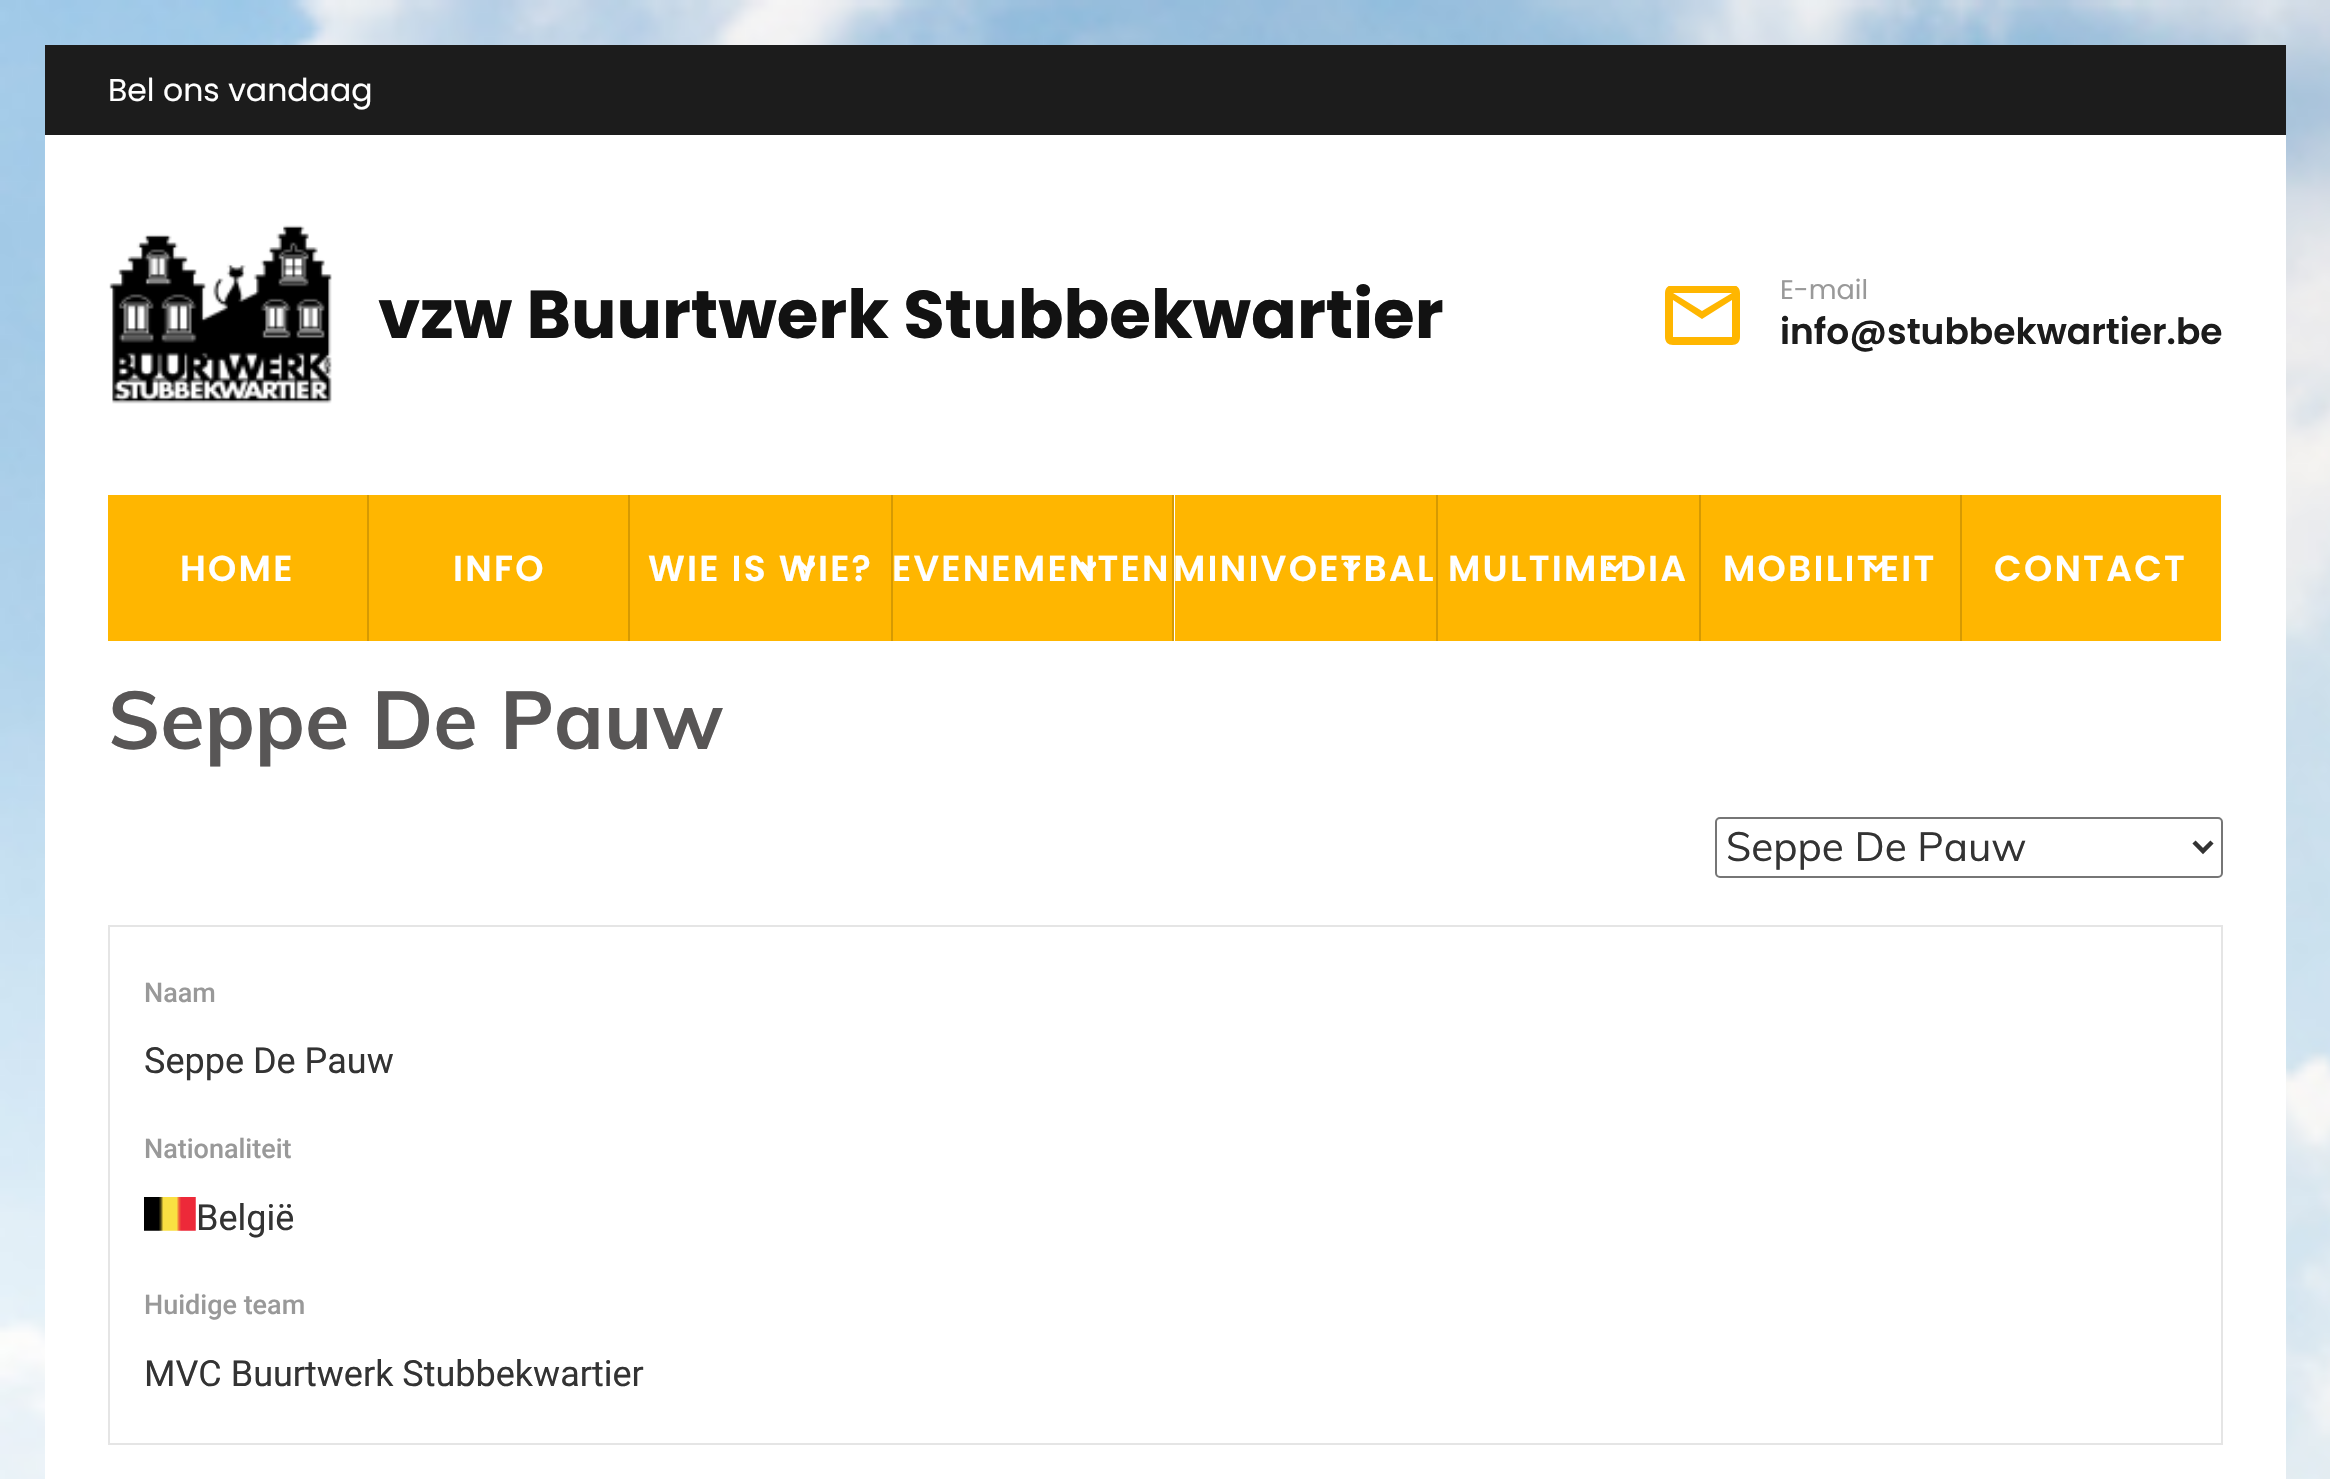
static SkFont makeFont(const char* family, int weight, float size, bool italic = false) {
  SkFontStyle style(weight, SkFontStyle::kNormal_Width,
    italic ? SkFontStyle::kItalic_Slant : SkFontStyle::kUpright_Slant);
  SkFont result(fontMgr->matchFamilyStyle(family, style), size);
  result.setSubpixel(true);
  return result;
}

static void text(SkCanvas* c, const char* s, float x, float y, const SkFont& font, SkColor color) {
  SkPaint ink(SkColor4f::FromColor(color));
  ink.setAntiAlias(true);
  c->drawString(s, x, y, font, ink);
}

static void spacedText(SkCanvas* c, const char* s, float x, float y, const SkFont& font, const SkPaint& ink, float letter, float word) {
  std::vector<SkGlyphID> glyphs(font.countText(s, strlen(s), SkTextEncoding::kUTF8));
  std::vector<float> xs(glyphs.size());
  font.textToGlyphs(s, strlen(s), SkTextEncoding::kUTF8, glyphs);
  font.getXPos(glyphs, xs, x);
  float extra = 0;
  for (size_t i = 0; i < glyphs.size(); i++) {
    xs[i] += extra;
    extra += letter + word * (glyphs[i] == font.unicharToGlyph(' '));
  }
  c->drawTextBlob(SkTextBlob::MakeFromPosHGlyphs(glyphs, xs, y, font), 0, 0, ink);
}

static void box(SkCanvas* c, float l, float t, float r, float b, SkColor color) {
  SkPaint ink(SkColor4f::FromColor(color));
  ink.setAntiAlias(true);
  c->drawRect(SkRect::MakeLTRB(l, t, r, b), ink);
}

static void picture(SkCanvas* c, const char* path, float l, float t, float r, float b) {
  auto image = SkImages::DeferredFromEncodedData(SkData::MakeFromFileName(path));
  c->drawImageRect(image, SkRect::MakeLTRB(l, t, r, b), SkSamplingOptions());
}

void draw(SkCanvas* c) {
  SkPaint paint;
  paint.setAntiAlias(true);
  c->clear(0xffffffff);
  picture(c, "img_01.png", 0, 0, 2330, 1479);
  box(c, 45, 135, 2286, 1479, 0xffffffff);
  box(c, 45, 45, 2286, 135, 0xff1c1c1c);
  SkFont face1 = makeFont("Poppins", 400, 31.5f);
  text(c, "Bel ons vandaag", 108, 101, face1, 0xffffffff);
  picture(c, "img_02.png", 109, 225, 332, 404);
  SkFont face2 = makeFont("Poppins", 700, 67.5f);
  text(c, "vzw Buurtwerk Stubbekwartier", 378, 338, face2, 0xff121212);
  c->save();
  c->clipRect(SkRect::MakeLTRB(1665, 286, 1742, 347));
  paint.setColor(0xffffb600);
  c->drawPath(SkPathBuilder().moveTo(1732, 285).lineTo(1673, 285).cubicTo(1668, 285, 1665, 288, 1665, 293).lineTo(1665, 337).cubicTo(1665, 342, 1668, 345, 1673, 345).lineTo(1732, 345).cubicTo(1737, 345, 1740, 342, 1740, 337).lineTo(1740, 293).cubicTo(1740, 288, 1737, 285, 1732, 285).close().moveTo(1732, 337).lineTo(1673, 337).lineTo(1673, 300).lineTo(1702, 319).lineTo(1732, 300).close().moveTo(1702, 311).lineTo(1673, 293).lineTo(1732, 293).close().detach(), paint);
  c->restore();
  SkFont face3 = makeFont("Poppins", 400, 27);
  text(c, "E-mail", 1780, 299, face3, 0xff999999);
  SkFont face4 = makeFont("Poppins", 600, 36);
  text(c, "info@stubbekwartier.be", 1780, 344, face4, 0xff1c1c1c);
  box(c, 367, 495, 369, 641, 0xffd69a02);
  box(c, 108, 495, 367, 641, 0xffffb600);
  paint.setColor(0xffffffff);
  spacedText(c, "HOME", 180, 581, face4, paint, 2.25f, 0);
  box(c, 628, 495, 630, 641, 0xffd69a02);
  box(c, 369, 495, 628, 641, 0xffffb600);
  spacedText(c, "INFO", 453, 581, face4, paint, 2.25f, 0);
  box(c, 891, 495, 893, 641, 0xffd69a02);
  box(c, 630, 495, 891, 641, 0xffffb600);
  spacedText(c, "WIE IS WIE?", 648, 581, face4, paint, 2.25f, 0);
  picture(c, "img_03.png", 801, 561, 815, 572);
  box(c, 1172, 495, 1174, 641, 0xffd69a02);
  box(c, 893, 495, 1172, 641, 0xffffb600);
  spacedText(c, "EVENEMENTEN", 892, 581, face4, paint, 2.25f, 0);
  picture(c, "img_04.png", 1081, 561, 1096, 573);
  box(c, 1436, 495, 1438, 641, 0xffd69a02);
  box(c, 1175, 495, 1436, 641, 0xffffb600);
  spacedText(c, "MINIVOETBAL", 1173, 581, face4, paint, 2.25f, 0);
  picture(c, "img_05.png", 1343, 561, 1361, 572);
  box(c, 1699, 495, 1701, 641, 0xffd69a02);
  box(c, 1438, 495, 1699, 641, 0xffffb600);
  spacedText(c, "MULTIMEDIA", 1448, 581, face4, paint, 2.25f, 0);
  picture(c, "img_06.png", 1607, 561, 1622, 573);
  box(c, 1960, 495, 1962, 641, 0xffd69a02);
  box(c, 1701, 495, 1960, 641, 0xffffb600);
  spacedText(c, "MOBILITEIT", 1723, 581, face4, paint, 2.25f, 0);
  picture(c, "img_07.png", 1869, 561, 1883, 573);
  box(c, 1962, 495, 2221, 641, 0xffffb600);
  spacedText(c, "CONTACT", 1994, 581, face4, paint, 2.25f, 0);
  SkFont face5 = makeFont("Muli", 700, 81);
  text(c, "Seppe De Pauw", 108, 749, face5, 0xff585656);
  paint.setStyle(SkPaint::kStroke_Style);
  paint.setStrokeWidth(2);
  paint.setColor(0xff767676);
  c->drawRoundRect(SkRect::MakeLTRB(1716, 818, 2222, 877), 4, 4, paint);
  paint.setStrokeWidth(4.5f);
  paint.setColor(0xff333333);
  c->drawPath(SkPathBuilder().moveTo(2194, 842).lineTo(2203, 851).lineTo(2212, 842).detach(), paint);
  SkFont face6 = makeFont("Muli", 400, 40.5f);
  text(c, "Seppe De Pauw", 1726, 861, face6, 0xff333333);
  paint.setStrokeWidth(2);
  paint.setColor(0xffe5e5e5);
  c->drawRect(SkRect::MakeLTRB(109, 926, 2222, 1444), paint);
  SkFont face7 = makeFont("Roboto", 500, 27);
  text(c, "Naam", 144, 1002, face7, 0xff999999);
  SkFont face8 = makeFont("Roboto", 400, 36);
  text(c, "Seppe De Pauw", 144, 1073, face8, 0xff333333);
  text(c, "Nationaliteit", 144, 1158, face7, 0xff999999);
  picture(c, "img_08.png", 144, 1197, 196, 1231);
  text(c, "België", 196, 1230, face8, 0xff333333);
  text(c, "Huidige team", 144, 1314, face7, 0xff999999);
  text(c, "MVC Buurtwerk Stubbekwartier", 144, 1386, face8, 0xff333333);
}
